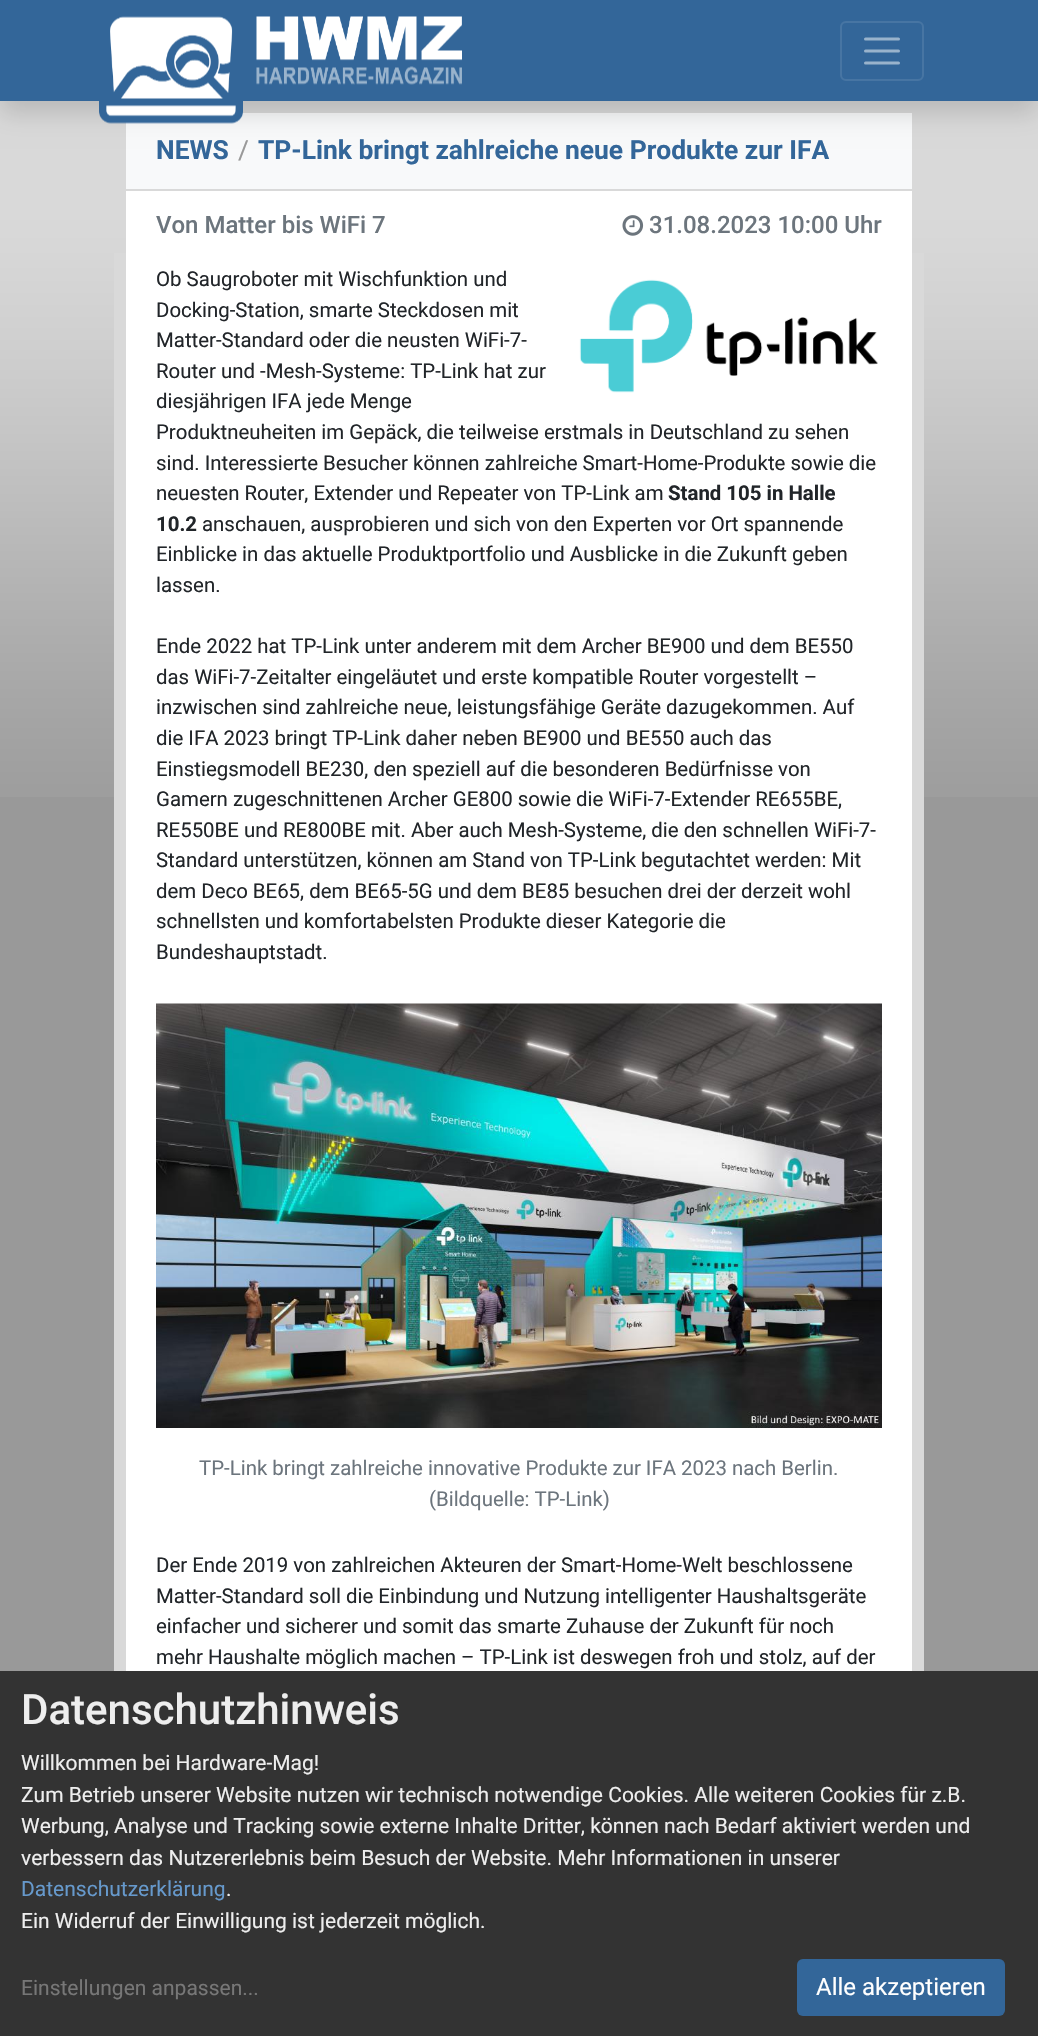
static SkFont makeFont(const char* family, int weight, float size, bool italic = false) {
  SkFontStyle style(weight, SkFontStyle::kNormal_Width,
    italic ? SkFontStyle::kItalic_Slant : SkFontStyle::kUpright_Slant);
  SkFont result(fontMgr->matchFamilyStyle(family, style), size);
  result.setSubpixel(true);
  return result;
}

static void text(SkCanvas* c, const char* s, float x, float y, const SkFont& font, SkColor color) {
  SkPaint ink(SkColor4f::FromColor(color));
  ink.setAntiAlias(true);
  c->drawString(s, x, y, font, ink);
}

static void box(SkCanvas* c, float l, float t, float r, float b, SkColor color) {
  SkPaint ink(SkColor4f::FromColor(color));
  ink.setAntiAlias(true);
  c->drawRect(SkRect::MakeLTRB(l, t, r, b), ink);
}

static void roundBox(SkCanvas* c, float l, float t, float r, float b, float radius, SkColor color) {
  SkPaint ink(SkColor4f::FromColor(color));
  ink.setAntiAlias(true);
  c->drawRoundRect(SkRect::MakeLTRB(l, t, r, b), radius, radius, ink);
}

static void picture(SkCanvas* c, const char* path, float l, float t, float r, float b) {
  auto image = SkImages::DeferredFromEncodedData(SkData::MakeFromFileName(path));
  c->drawImageRect(image, SkRect::MakeLTRB(l, t, r, b), SkSamplingOptions());
}

void draw(SkCanvas* c) {
  SkPaint paint;
  paint.setAntiAlias(true);
  c->clear(0xff999999);
  picture(c, "img_01.png", 0, 101, 1038, 797);
  box(c, 126, 113, 912, 189, 0xfff8f9fa);
  paint.setColor(0x26000000);
  paint.setMaskFilter(SkMaskFilter::MakeBlur(kNormal_SkBlurStyle, 12));
  c->drawRect(SkRect::MakeLTRB(0, 12, 1038, 113), paint);
  paint.setMaskFilter(nullptr);
  box(c, 0, 0, 1038, 101, 0xff336699);
  picture(c, "img_02.png", 99, 16, 243, 124);
  picture(c, "img_03.png", 256, 16, 462, 85);
  paint.setStyle(SkPaint::kStroke_Style);
  paint.setStrokeWidth(2);
  paint.setColor(0xff4775a3);
  c->drawRoundRect(SkRect::MakeLTRB(841, 22, 923, 80), 5, 5, paint);
  paint.setStrokeWidth(3);
  paint.setStrokeCap(SkPaint::kRound_Cap);
  paint.setColor(0xff99b3cc);
  c->drawPath(SkPathBuilder().moveTo(865.5f, 39).lineTo(898.5f, 39).moveTo(865.5f, 51).lineTo(898.5f, 51).moveTo(865.5f, 63).lineTo(898.5f, 63).detach(), paint);
  box(c, 114, 253, 924, 1671, 0xffd9d9d9);
  SkFont face1 = makeFont("Roboto", 700, 26.4f);
  text(c, "NEWS", 156, 159, face1, 0xff336699);
  SkFont face2 = makeFont("Roboto", 400, 26.4f);
  text(c, "/", 238, 159, face2, 0xff999999);
  text(c, "TP-Link bringt zahlreiche neue Produkte zur IFA", 258, 159, face1, 0xff336699);
  box(c, 126, 191, 912, 1671, 0xffffffff);
  SkFont face3 = makeFont("Roboto", 500, 24);
  text(c, "Von Matter bis WiFi 7", 156, 233, face3, 0xff6c757d);
  picture(c, "img_04.png", 622, 215, 644, 236);
  text(c, "31.08.2023 10:00 Uhr", 649, 233, face3, 0xff6c757d);
  SkFont face4 = makeFont("Roboto", 400, 20.4f);
  text(c, "Ob Saugroboter mit Wischfunktion und", 156, 286, face4, 0xff212529);
  text(c, "Docking-Station, smarte Steckdosen mit", 156, 317, face4, 0xff212529);
  text(c, "Matter-Standard oder die neusten WiFi-7-", 156, 347, face4, 0xff212529);
  text(c, "Router und -Mesh-Systeme: TP-Link hat zur", 156, 378, face4, 0xff212529);
  text(c, "diesjährigen IFA jede Menge", 156, 408, face4, 0xff212529);
  text(c, "Produktneuheiten im Gepäck, die teilweise erstmals in Deutschland zu sehen", 156, 439, face4, 0xff212529);
  text(c, "sind. Interessierte Besucher können zahlreiche Smart-Home-Produkte sowie die", 156, 470, face4, 0xff212529);
  text(c, "neuesten Router, Extender und Repeater von TP-Link am", 156, 500, face4, 0xff212529);
  SkFont face5 = makeFont("Roboto", 700, 20.4f);
  text(c, "Stand 105 in Halle", 668, 500, face5, 0xff212529);
  text(c, "10.2", 156, 531, face5, 0xff212529);
  text(c, "anschauen, ausprobieren und sich von den Experten vor Ort spannende", 202, 531, face4, 0xff212529);
  text(c, "Einblicke in das aktuelle Produktportfolio und Ausblicke in die Zukunft geben", 156, 561, face4, 0xff212529);
  text(c, "lassen.", 156, 592, face4, 0xff212529);
  text(c, "Ende 2022 hat TP-Link unter anderem mit dem Archer BE900 und dem BE550", 156, 653, face4, 0xff212529);
  text(c, "das WiFi-7-Zeitalter eingeläutet und erste kompatible Router vorgestellt –", 156, 684, face4, 0xff212529);
  text(c, "inzwischen sind zahlreiche neue, leistungsfähige Geräte dazugekommen. Auf", 156, 714, face4, 0xff212529);
  text(c, "die IFA 2023 bringt TP-Link daher neben BE900 und BE550 auch das", 156, 745, face4, 0xff212529);
  text(c, "Einstiegsmodell BE230, den speziell auf die besonderen Bedürfnisse von", 156, 776, face4, 0xff212529);
  text(c, "Gamern zugeschnittenen Archer GE800 sowie die WiFi-7-Extender RE655BE,", 156, 806, face4, 0xff212529);
  text(c, "RE550BE und RE800BE mit. Aber auch Mesh-Systeme, die den schnellen WiFi-7-", 156, 837, face4, 0xff212529);
  text(c, "Standard unterstützen, können am Stand von TP-Link begutachtet werden: Mit", 156, 867, face4, 0xff212529);
  text(c, "dem Deco BE65, dem BE65-5G und dem BE85 besuchen drei der derzeit wohl", 156, 898, face4, 0xff212529);
  text(c, "schnellsten und komfortabelsten Produkte dieser Kategorie die", 156, 928, face4, 0xff212529);
  text(c, "Bundeshauptstadt.", 156, 959, face4, 0xff212529);
  picture(c, "img_05.png", 579, 279, 878, 393);
  picture(c, "img_06.png", 156, 1003, 882, 1428);
  text(c, "TP-Link bringt zahlreiche innovative Produkte zur IFA 2023 nach Berlin.", 199, 1475, face4, 0xff6c757d);
  text(c, "(Bildquelle: TP-Link)", 429, 1506, face4, 0xff6c757d);
  text(c, "Der Ende 2019 von zahlreichen Akteuren der Smart-Home-Welt beschlossene", 156, 1572, face4, 0xff212529);
  text(c, "Matter-Standard soll die Einbindung und Nutzung intelligenter Haushaltsgeräte", 156, 1603, face4, 0xff212529);
  text(c, "einfacher und sicherer und somit das smarte Zuhause der Zukunft für noch", 156, 1633, face4, 0xff212529);
  text(c, "mehr Haushalte möglich machen – TP-Link ist deswegen froh und stolz, auf der", 156, 1664, face4, 0xff212529);
  box(c, 0, 1671, 1038, 2036, 0xff333333);
  SkFont face6 = makeFont("Roboto", 500, 42);
  text(c, "Datenschutzhinweis", 21, 1724, face6, 0xffeeeeee);
  SkFont face7 = makeFont("Roboto", 400, 21);
  text(c, "Willkommen bei Hardware-Mag!", 21, 1770, face7, 0xffeeeeee);
  text(c, "Zum Betrieb unserer Website nutzen wir technisch notwendige Cookies. Alle weiteren Cookies für z.B.", 21, 1802, face7, 0xffeeeeee);
  text(c, "Werbung, Analyse und Tracking sowie externe Inhalte Dritter, können nach Bedarf aktiviert werden und", 21, 1833, face7, 0xffeeeeee);
  text(c, "verbessern das Nutzererlebnis beim Besuch der Website. Mehr Informationen in unserer", 21, 1865, face7, 0xffeeeeee);
  text(c, "Datenschutzerklärung", 21, 1896, face7, 0xff6699cc);
  text(c, ".", 226, 1896, face7, 0xffeeeeee);
  text(c, "Ein Widerruf der Einwilligung ist jederzeit möglich.", 21, 1928, face7, 0xffeeeeee);
  text(c, "Einstellungen anpassen...", 21, 1995, face7, 0xff777777);
  roundBox(c, 797, 1959, 1005, 2016, 6, 0xff336699);
  SkFont face8 = makeFont("Roboto", 400, 24);
  text(c, "Alle akzeptieren", 816, 1995, face8, 0xffffffff);
}
